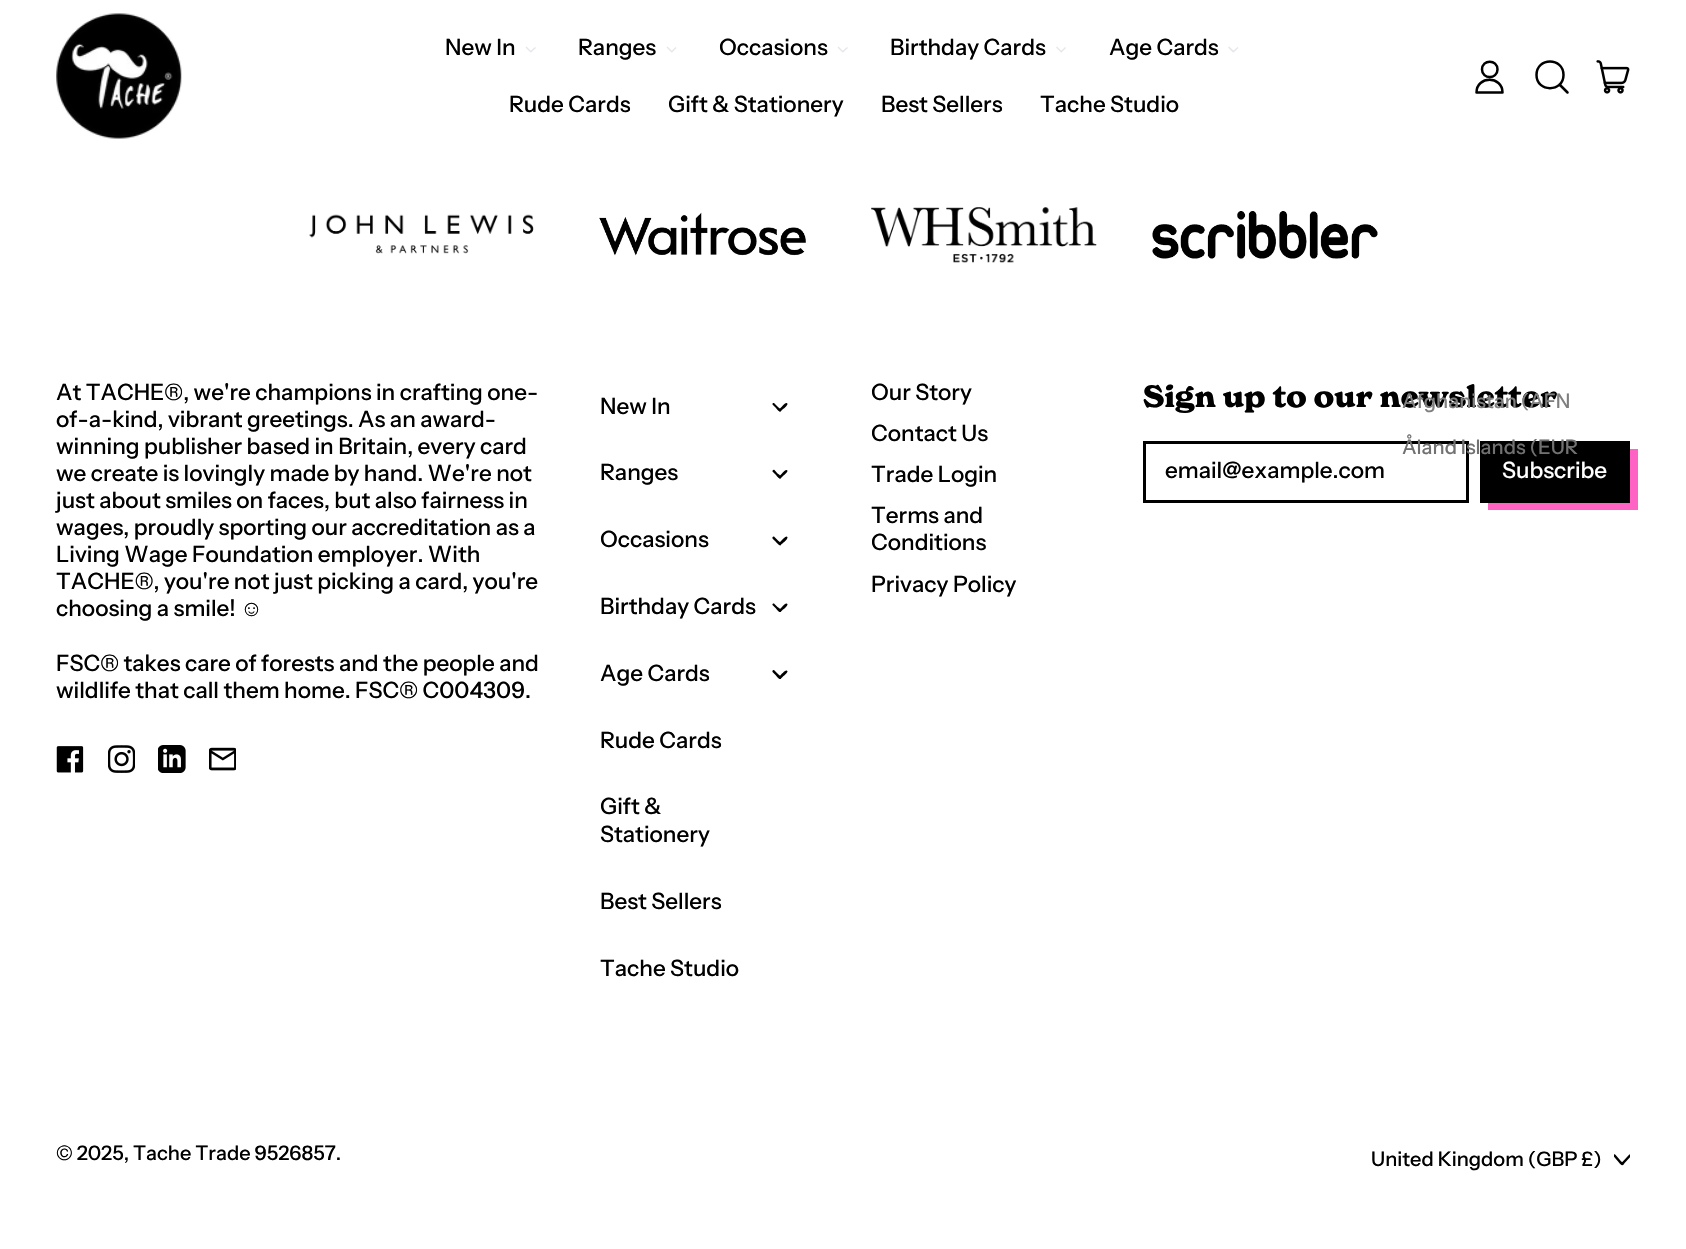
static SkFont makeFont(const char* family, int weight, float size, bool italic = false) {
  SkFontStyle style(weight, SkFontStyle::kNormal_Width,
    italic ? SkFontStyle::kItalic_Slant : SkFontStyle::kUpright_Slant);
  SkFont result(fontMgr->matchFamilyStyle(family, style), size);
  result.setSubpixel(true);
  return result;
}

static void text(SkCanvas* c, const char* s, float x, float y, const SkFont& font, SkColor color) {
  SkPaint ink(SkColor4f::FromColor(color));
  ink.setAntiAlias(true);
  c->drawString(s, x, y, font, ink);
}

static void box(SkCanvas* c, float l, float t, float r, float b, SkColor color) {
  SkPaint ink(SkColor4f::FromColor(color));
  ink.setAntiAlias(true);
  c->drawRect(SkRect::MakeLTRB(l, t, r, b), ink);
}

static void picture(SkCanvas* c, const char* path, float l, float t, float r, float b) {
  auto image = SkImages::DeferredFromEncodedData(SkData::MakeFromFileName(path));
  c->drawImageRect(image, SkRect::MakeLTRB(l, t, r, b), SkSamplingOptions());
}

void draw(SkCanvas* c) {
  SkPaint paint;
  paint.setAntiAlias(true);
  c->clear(0xffffffff);
  picture(c, "img_01.png", 56, 13, 182, 139);
  SkFont face1 = makeFont("Instrument Sans", 500, 22.5f);
  text(c, "New In", 445, 55, face1, 0xff000000);
  paint.setColor(0xffe5e7eb);
  c->drawPath(SkPathBuilder().moveTo(535, 47).lineTo(536, 48).lineTo(531, 52.5f).lineTo(530, 51.5f).close().detach(), paint);
  c->drawPath(SkPathBuilder().moveTo(526.5f, 46.5f).lineTo(531.5f, 51.5f).lineTo(530.5f, 52.5f).lineTo(525.5f, 47.5f).close().detach(), paint);
  text(c, "Ranges", 578, 55, face1, 0xff000000);
  c->drawPath(SkPathBuilder().moveTo(675.5f, 47).lineTo(676.5f, 48).lineTo(672, 52.5f).lineTo(671, 51.5f).close().detach(), paint);
  c->drawPath(SkPathBuilder().moveTo(667.5f, 46.5f).lineTo(672.5f, 51.5f).lineTo(671.5f, 52.5f).lineTo(666.5f, 47.5f).close().detach(), paint);
  text(c, "Occasions", 719, 55, face1, 0xff000000);
  c->drawPath(SkPathBuilder().moveTo(847, 47).lineTo(848, 48).lineTo(843, 52.5f).lineTo(842, 51.5f).close().detach(), paint);
  c->drawPath(SkPathBuilder().moveTo(838.5f, 46.5f).lineTo(843.5f, 51.5f).lineTo(842.5f, 52.5f).lineTo(837.5f, 47.5f).close().detach(), paint);
  text(c, "Birthday Cards", 890, 55, face1, 0xff000000);
  c->drawPath(SkPathBuilder().moveTo(1065, 47).lineTo(1066, 48).lineTo(1061.5f, 52.5f).lineTo(1060.5f, 51.5f).close().detach(), paint);
  c->drawPath(SkPathBuilder().moveTo(1057, 46.5f).lineTo(1062, 51.5f).lineTo(1061, 52.5f).lineTo(1056, 47.5f).close().detach(), paint);
  text(c, "Age Cards", 1109, 55, face1, 0xff000000);
  c->drawPath(SkPathBuilder().moveTo(1237.5f, 47).lineTo(1238.5f, 48).lineTo(1233.5f, 52.5f).lineTo(1232.5f, 51.5f).close().detach(), paint);
  c->drawPath(SkPathBuilder().moveTo(1229, 46.5f).lineTo(1234.5f, 51.5f).lineTo(1233, 52.5f).lineTo(1228, 47.5f).close().detach(), paint);
  text(c, "Rude Cards", 509, 112, face1, 0xff000000);
  text(c, "Gift & Stationery", 668, 112, face1, 0xff000000);
  text(c, "Best Sellers", 881, 112, face1, 0xff000000);
  text(c, "Tache Studio", 1040, 112, face1, 0xff000000);
  paint.setStyle(SkPaint::kStroke_Style);
  paint.setStrokeWidth(2.5f);
  paint.setStrokeCap(SkPaint::kRound_Cap);
  paint.setStrokeJoin(SkPaint::kRound_Join);
  paint.setColor(0xff000000);
  c->drawPath(SkPathBuilder().moveTo(1482, 69.5f).cubicTo(1482, 79.5f, 1497.5f, 79.5f, 1497.5f, 69.5f).cubicTo(1497.5f, 59, 1482, 59, 1482, 69.5f).close().moveTo(1476.5f, 92.5f).cubicTo(1476.5f, 75.5f, 1502.5f, 75.5f, 1502.5f, 92.5f).close().detach(), paint);
  c->drawPath(SkPathBuilder().moveTo(1536.5f, 75).cubicTo(1536.5f, 92.5f, 1563.5f, 92.5f, 1563.5f, 75).cubicTo(1563.5f, 57, 1536.5f, 57, 1536.5f, 75).close().moveTo(1567.5f, 92.5f).lineTo(1559.5f, 84.5f).detach(), paint);
  picture(c, "img_02.png", 1596, 60, 1630, 94);
  picture(c, "img_03.png", 309, 214, 534, 254);
  picture(c, "img_04.png", 599, 212, 806, 256);
  picture(c, "img_05.png", 871, 207, 1097, 263);
  picture(c, "img_06.png", 1152, 211, 1378, 259);
  text(c, "At TACHE®, we're champions in crafting one-", 56, 400, face1, 0xff000000);
  text(c, "of-a-kind, vibrant greetings. As an award-", 56, 427, face1, 0xff000000);
  text(c, "winning publisher based in Britain, every card", 56, 454, face1, 0xff000000);
  text(c, "we create is lovingly made by hand. We're not", 56, 481, face1, 0xff000000);
  text(c, "just about smiles on faces, but also fairness in", 56, 508, face1, 0xff000000);
  text(c, "wages, proudly sporting our accreditation as a", 56, 535, face1, 0xff000000);
  text(c, "Living Wage Foundation employer. With", 56, 562, face1, 0xff000000);
  text(c, "TACHE®, you're not just picking a card, you're", 56, 589, face1, 0xff000000);
  text(c, "choosing a smile!", 56, 616, face1, 0xff000000);
  SkFont face2 = makeFont("Liberation Sans", 400, 22.5f);
  text(c, "☺", 240, 616, face2, 0xff000000);
  text(c, "FSC® takes care of forests and the people and", 56, 671, face1, 0xff000000);
  text(c, "wildlife that call them home. FSC® C004309.", 56, 698, face1, 0xff000000);
  picture(c, "img_07.png", 56, 746, 84, 773);
  picture(c, "img_08.png", 108, 745, 135, 773);
  picture(c, "img_09.png", 158, 745, 186, 773);
  picture(c, "img_10.png", 209, 747, 236, 771);
  text(c, "New In", 600, 414, face1, 0xff000000);
  paint.setStyle(SkPaint::kFill_Style);
  c->drawPath(SkPathBuilder().moveTo(774.5f, 403.5f).lineTo(777.5f, 406.5f).cubicTo(778.5f, 407.5f, 781.5f, 409.5f, 781, 410.5f).cubicTo(780.5f, 414, 775.5f, 407.5f, 775, 407).lineTo(772.5f, 404.5f).cubicTo(772, 403.5f, 773.5f, 402.5f, 774.5f, 403.5f).close().detach(), paint);
  c->drawPath(SkPathBuilder().moveTo(779, 409.5f).lineTo(782, 406.5f).cubicTo(783, 405.5f, 785, 402.5f, 786.5f, 403).cubicTo(790, 403.5f, 783.5f, 409, 783, 409).lineTo(780.5f, 411.5f).cubicTo(779.5f, 412, 778, 410.5f, 779, 409.5f).close().detach(), paint);
  text(c, "Ranges", 600, 480, face1, 0xff000000);
  c->drawPath(SkPathBuilder().moveTo(774.5f, 470).lineTo(777.5f, 473.5f).cubicTo(778.5f, 474, 781.5f, 476, 781, 477.5f).cubicTo(780.5f, 481, 775.5f, 474.5f, 775, 474).lineTo(772.5f, 471.5f).cubicTo(772, 470.5f, 773.5f, 469, 774.5f, 470).close().detach(), paint);
  c->drawPath(SkPathBuilder().moveTo(779, 476.5f).lineTo(782, 473.5f).cubicTo(783, 472.5f, 785, 469.5f, 786.5f, 470).cubicTo(790, 470.5f, 783.5f, 475.5f, 783, 476).lineTo(780.5f, 478.5f).cubicTo(779.5f, 479, 778, 477.5f, 779, 476.5f).close().detach(), paint);
  text(c, "Occasions", 600, 547, face1, 0xff000000);
  c->drawPath(SkPathBuilder().moveTo(774.5f, 537).lineTo(777.5f, 540).cubicTo(778.5f, 541, 781.5f, 543, 781, 544.5f).cubicTo(780.5f, 548, 775.5f, 541, 775, 541).lineTo(772.5f, 538.5f).cubicTo(772, 537, 773.5f, 536, 774.5f, 537).close().detach(), paint);
  c->drawPath(SkPathBuilder().moveTo(779, 543).lineTo(782, 540).cubicTo(783, 539, 785, 536.5f, 786.5f, 536.5f).cubicTo(790, 537.5f, 783.5f, 542.5f, 783, 543).lineTo(780.5f, 545).cubicTo(779.5f, 545.5f, 778, 544, 779, 543).close().detach(), paint);
  text(c, "Birthday Cards", 600, 614, face1, 0xff000000);
  c->drawPath(SkPathBuilder().moveTo(774.5f, 604).lineTo(777.5f, 607).cubicTo(778.5f, 607.5f, 781.5f, 609.5f, 781, 611).cubicTo(780.5f, 614.5f, 775.5f, 608, 775, 607.5f).lineTo(772.5f, 605).cubicTo(772, 604, 773.5f, 603, 774.5f, 604).close().detach(), paint);
  c->drawPath(SkPathBuilder().moveTo(779, 610).lineTo(782, 607).cubicTo(783, 606, 785, 603, 786.5f, 603.5f).cubicTo(790, 604, 783.5f, 609.5f, 783, 609.5f).lineTo(780.5f, 612).cubicTo(779.5f, 612.5f, 778, 611, 779, 610).close().detach(), paint);
  text(c, "Age Cards", 600, 681, face1, 0xff000000);
  c->drawPath(SkPathBuilder().moveTo(774.5f, 670.5f).lineTo(777.5f, 673.5f).cubicTo(778.5f, 674.5f, 781.5f, 676.5f, 781, 678).cubicTo(780.5f, 681.5f, 775.5f, 675, 775, 674.5f).lineTo(772.5f, 672).cubicTo(772, 670.5f, 773.5f, 669.5f, 774.5f, 670.5f).close().detach(), paint);
  c->drawPath(SkPathBuilder().moveTo(779, 677).lineTo(782, 673.5f).cubicTo(783, 673, 785, 670, 786.5f, 670.5f).cubicTo(790, 671, 783.5f, 676, 783, 676.5f).lineTo(780.5f, 679).cubicTo(779.5f, 679.5f, 778, 677.5f, 779, 677).close().detach(), paint);
  text(c, "Rude Cards", 600, 748, face1, 0xff000000);
  text(c, "Gift &", 600, 814, face1, 0xff000000);
  text(c, "Stationery", 600, 842, face1, 0xff000000);
  text(c, "Best Sellers", 600, 909, face1, 0xff000000);
  text(c, "Tache Studio", 600, 976, face1, 0xff000000);
  text(c, "Our Story", 871, 400, face1, 0xff000000);
  text(c, "Contact Us", 871, 441, face1, 0xff000000);
  text(c, "Trade Login", 871, 482, face1, 0xff000000);
  text(c, "Terms and", 871, 523, face1, 0xff000000);
  text(c, "Conditions", 871, 550, face1, 0xff000000);
  text(c, "Privacy Policy", 871, 592, face1, 0xff000000);
  SkFont face3 = makeFont("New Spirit", 700, 30);
  text(c, "Sign up to our newsletter", 1143, 407, face3, 0xff000000);
  paint.setStyle(SkPaint::kStroke_Style);
  paint.setStrokeWidth(3);
  paint.setStrokeCap(SkPaint::kButt_Cap);
  paint.setStrokeJoin(SkPaint::kMiter_Join);
  c->drawRect(SkRect::MakeLTRB(1144.5f, 442.5f, 1467.5f, 501.5f), paint);
  text(c, "email@example.com", 1165, 478, face1, 0xff000000);
  box(c, 1488, 449, 1638, 510, 0xffff63c4);
  box(c, 1480, 441, 1630, 503, 0xff000000);
  text(c, "Subscribe", 1502, 478, face1, 0xffffffff);
  SkFont face4 = makeFont("Instrument Sans", 500, 20);
  text(c, "© 2025, Tache Trade 9526857.", 56, 1160, face4, 0xff000000);
  text(c, "Afghanistan (AFN", 1402, 408, face4, 0xff7f7f7f);
  text(c, "Åland Islands (EUR", 1402, 454, face4, 0xff717171);
  text(c, "United Kingdom (GBP £)", 1371, 1166, face4, 0xff000000);
  c->save();
  c->clipRect(SkRect::MakeLTRB(1614, 1151, 1630, 1168));
  paint.setStrokeWidth(2.5f);
  paint.setStrokeCap(SkPaint::kRound_Cap);
  paint.setStrokeJoin(SkPaint::kRound_Join);
  c->drawPath(SkPathBuilder().moveTo(1614.5f, 1155.5f).lineTo(1620.5f, 1162.5f).cubicTo(1622.5f, 1164.5f, 1622, 1164.5f, 1623.5f, 1162.5f).lineTo(1630, 1155.5f).detach(), paint);
  c->restore();
}
